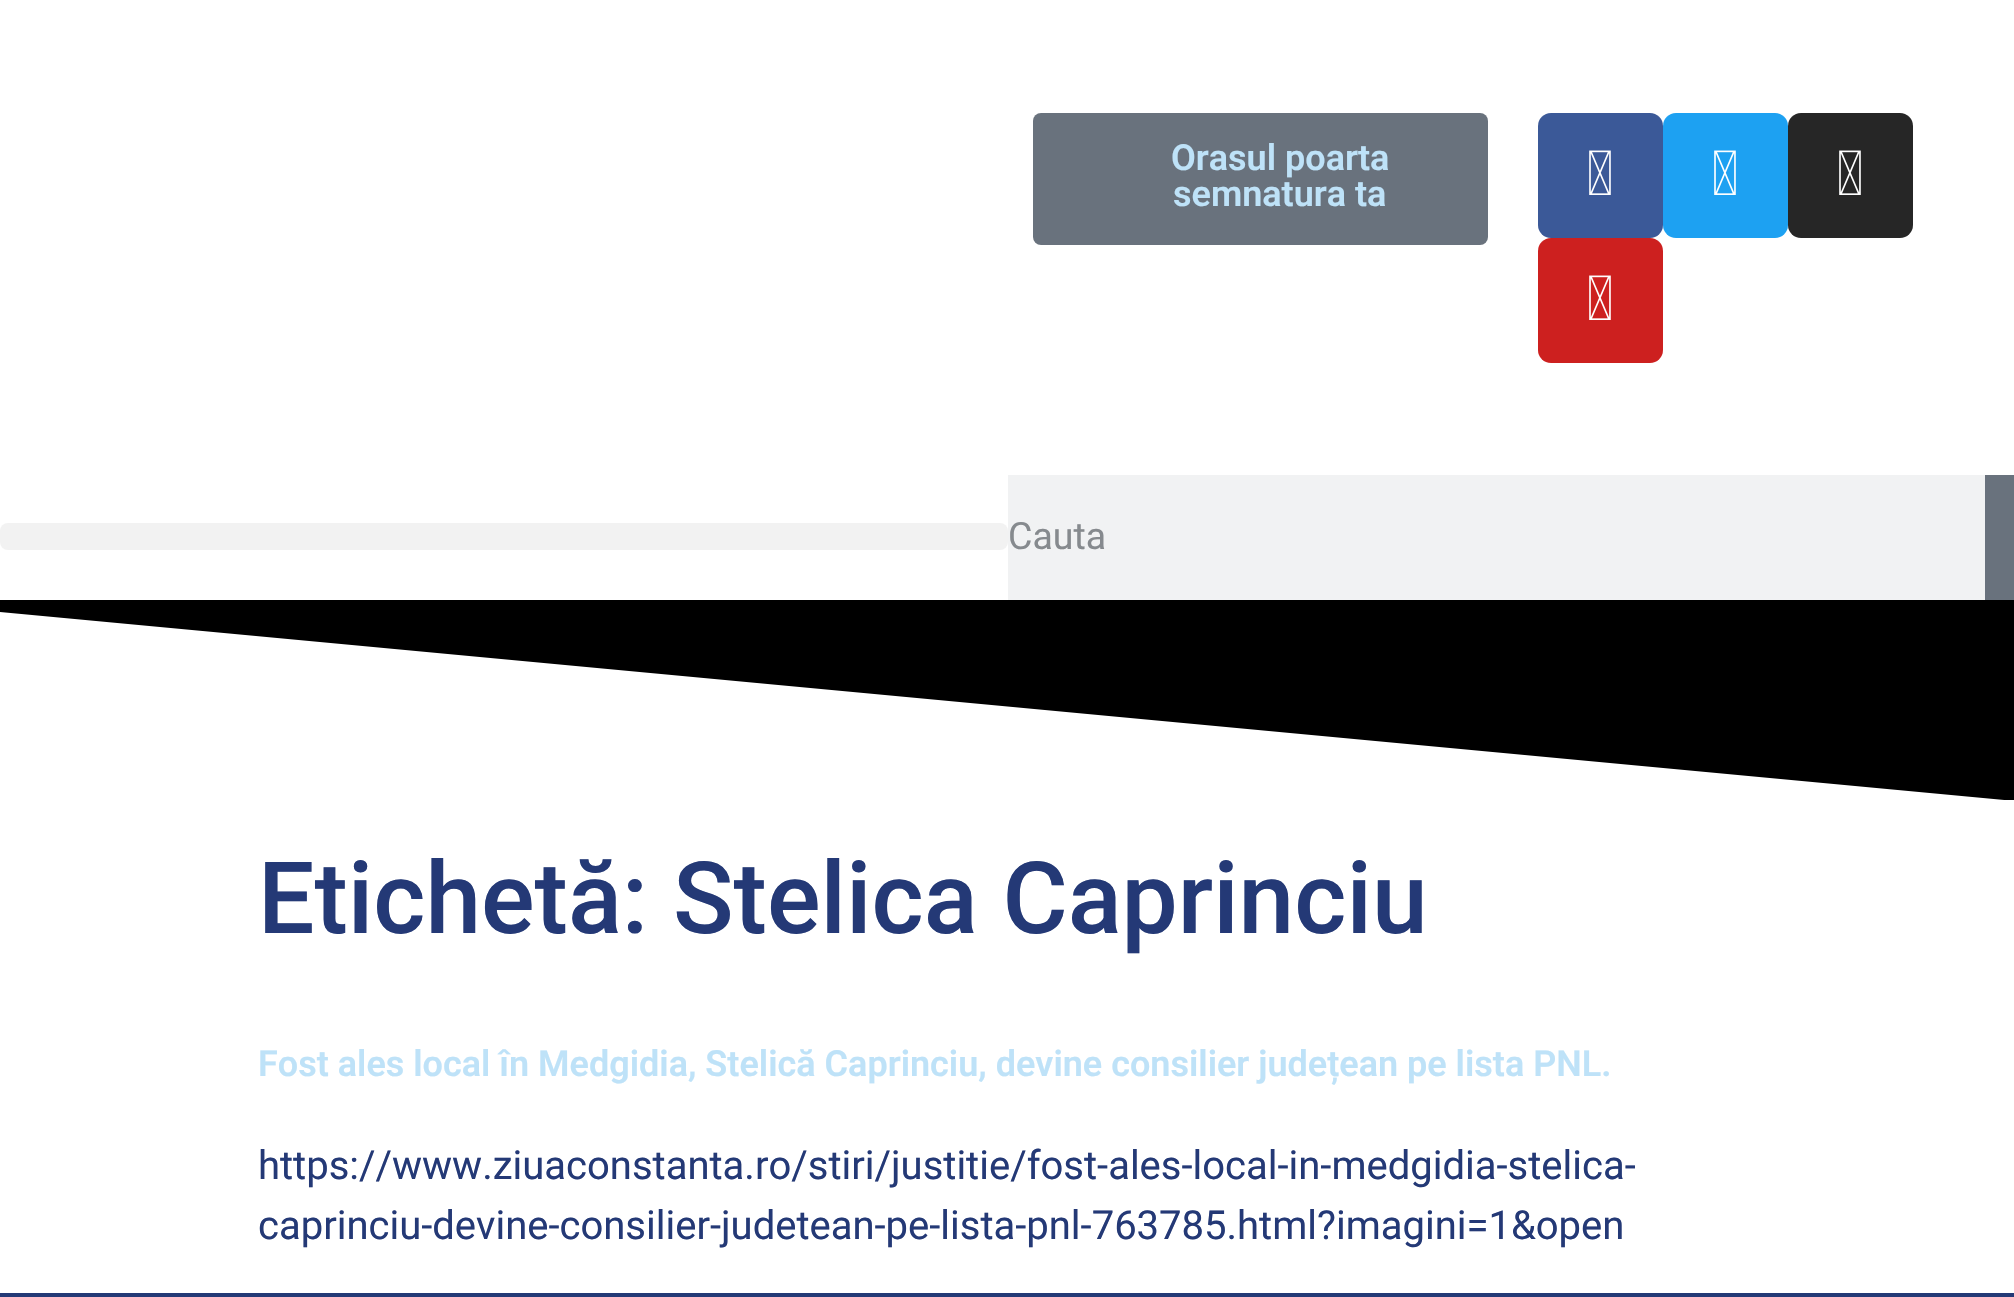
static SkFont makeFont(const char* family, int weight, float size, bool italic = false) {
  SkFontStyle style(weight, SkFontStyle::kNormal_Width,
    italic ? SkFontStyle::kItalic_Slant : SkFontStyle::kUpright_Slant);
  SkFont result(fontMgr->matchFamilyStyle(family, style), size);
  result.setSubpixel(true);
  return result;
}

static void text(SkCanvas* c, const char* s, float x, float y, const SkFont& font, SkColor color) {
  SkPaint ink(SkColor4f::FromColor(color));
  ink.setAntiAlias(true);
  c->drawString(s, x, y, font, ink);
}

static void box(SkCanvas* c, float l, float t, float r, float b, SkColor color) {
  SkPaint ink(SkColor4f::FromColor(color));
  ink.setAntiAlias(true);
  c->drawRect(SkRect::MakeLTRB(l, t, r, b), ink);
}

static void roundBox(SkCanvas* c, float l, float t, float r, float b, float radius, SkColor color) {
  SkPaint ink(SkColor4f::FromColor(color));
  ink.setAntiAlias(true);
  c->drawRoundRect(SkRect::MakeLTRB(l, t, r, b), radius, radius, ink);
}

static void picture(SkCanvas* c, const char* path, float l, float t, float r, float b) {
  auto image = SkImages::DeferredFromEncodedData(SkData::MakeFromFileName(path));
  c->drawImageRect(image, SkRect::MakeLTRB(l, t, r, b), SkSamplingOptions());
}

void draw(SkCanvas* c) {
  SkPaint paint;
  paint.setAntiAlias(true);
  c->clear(0xffffffff);
  roundBox(c, 1033, 113, 1488, 245, 8, 0xff69727d);
  SkFont face1 = makeFont("Roboto", 600, 36);
  text(c, "Orasul poarta", 1171, 170, face1, 0xffbee2f8);
  text(c, "semnatura ta", 1173, 206, face1, 0xffbee2f8);
  roundBox(c, 1538, 113, 1663, 238, 13, 0xff3b5998);
  picture(c, "img_01.png", 1589, 150, 1611, 195);
  roundBox(c, 1663, 113, 1788, 238, 13, 0xff1da1f2);
  picture(c, "img_02.png", 1714, 150, 1736, 195);
  roundBox(c, 1788, 113, 1913, 238, 13, 0xff262626);
  picture(c, "img_03.png", 1839, 150, 1861, 195);
  roundBox(c, 1538, 238, 1663, 363, 13, 0xffcd201f);
  picture(c, "img_04.png", 1589, 275, 1611, 320);
  roundBox(c, 0, 523, 1008, 550, 8, 0xfff2f2f2);
  box(c, 1008, 475, 1985, 600, 0xfff1f2f3);
  SkFont face2 = makeFont("Roboto", 400, 37.5f);
  text(c, "Cauta", 1008, 549, face2, 0xff868a8e);
  box(c, 1985, 475, 2014, 600, 0xff69727d);
  c->save();
  c->clipRect(SkRect::MakeLTRB(0, 600, 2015, 800));
  paint.setColor(0xff000000);
  c->drawPath(SkPathBuilder().moveTo(0, 612).lineTo(0, 600).lineTo(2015, 600).lineTo(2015, 801).close().detach(), paint);
  c->restore();
  SkFont face3 = makeFont("Roboto", 500, 100);
  text(c, "Etichetă: Stelica Caprinciu", 258, 933, face3, 0xff243976);
  text(c, "Fost ales local în Medgidia, Stelică Caprinciu, devine consilier județean pe lista PNL.", 258, 1076, face1, 0xffbee2f8);
  SkFont face4 = makeFont("Roboto", 400, 40);
  text(c, "https://www.ziuaconstanta.ro/stiri/justitie/fost-ales-local-in-medgidia-stelica-", 258, 1179, face4, 0xff243976);
  text(c, "caprinciu-devine-consilier-judetean-pe-lista-pnl-763785.html?imagini=1&open", 258, 1239, face4, 0xff243976);
  box(c, 0, 1293, 2014, 1297, 0xff243976);
}
